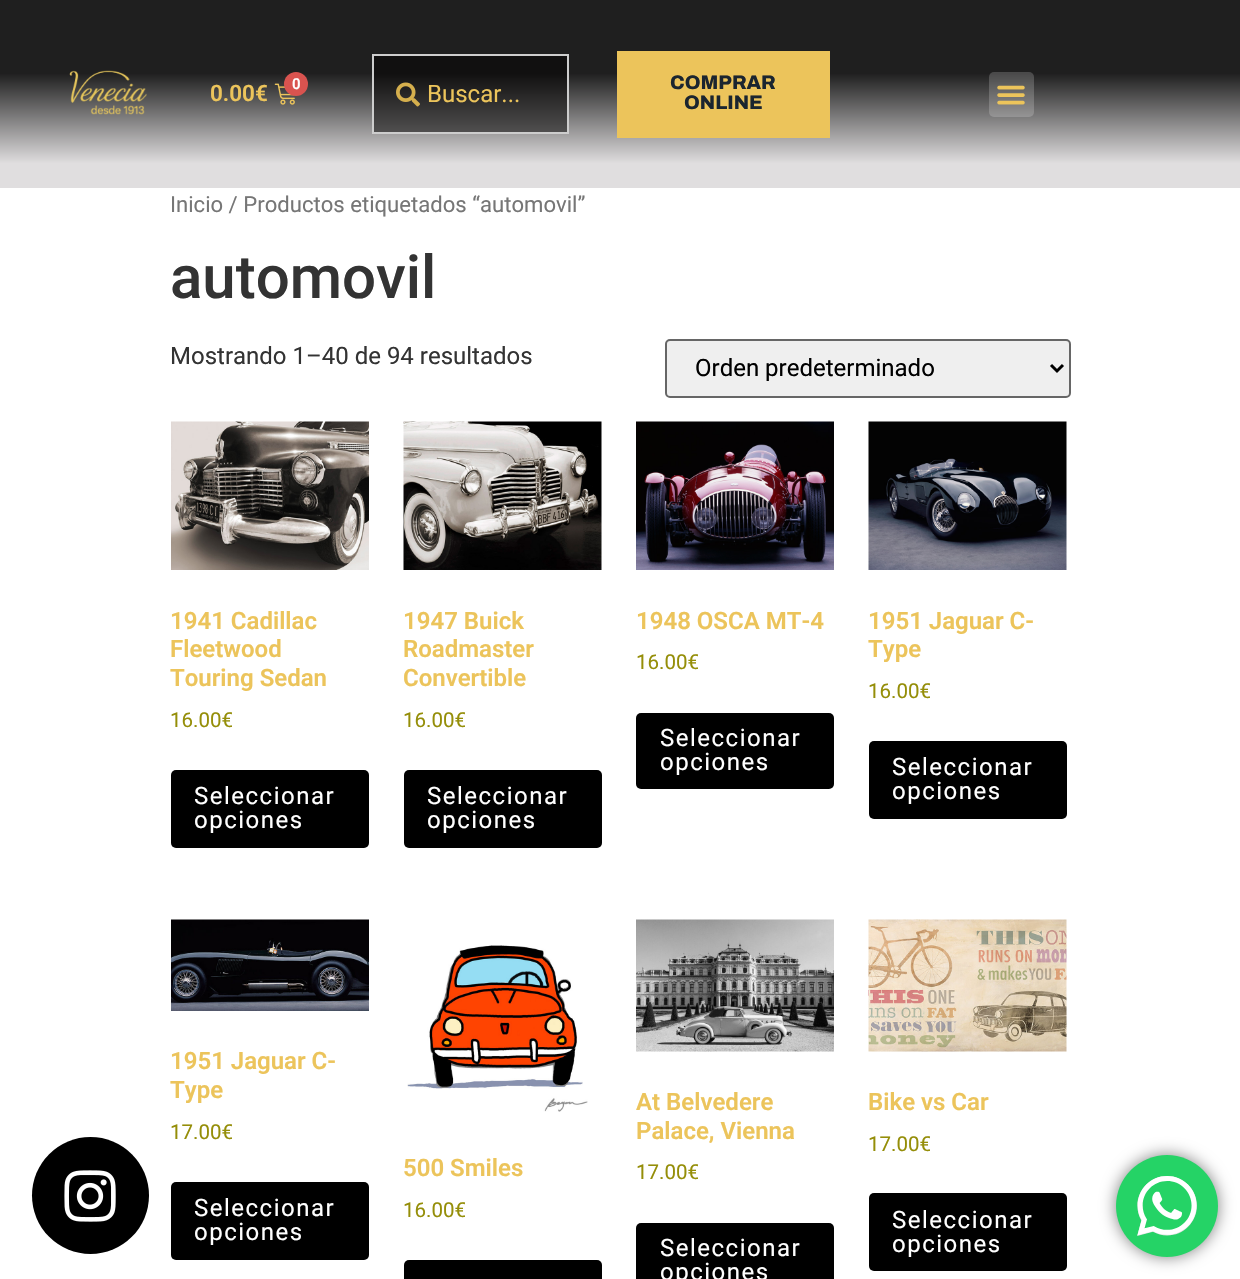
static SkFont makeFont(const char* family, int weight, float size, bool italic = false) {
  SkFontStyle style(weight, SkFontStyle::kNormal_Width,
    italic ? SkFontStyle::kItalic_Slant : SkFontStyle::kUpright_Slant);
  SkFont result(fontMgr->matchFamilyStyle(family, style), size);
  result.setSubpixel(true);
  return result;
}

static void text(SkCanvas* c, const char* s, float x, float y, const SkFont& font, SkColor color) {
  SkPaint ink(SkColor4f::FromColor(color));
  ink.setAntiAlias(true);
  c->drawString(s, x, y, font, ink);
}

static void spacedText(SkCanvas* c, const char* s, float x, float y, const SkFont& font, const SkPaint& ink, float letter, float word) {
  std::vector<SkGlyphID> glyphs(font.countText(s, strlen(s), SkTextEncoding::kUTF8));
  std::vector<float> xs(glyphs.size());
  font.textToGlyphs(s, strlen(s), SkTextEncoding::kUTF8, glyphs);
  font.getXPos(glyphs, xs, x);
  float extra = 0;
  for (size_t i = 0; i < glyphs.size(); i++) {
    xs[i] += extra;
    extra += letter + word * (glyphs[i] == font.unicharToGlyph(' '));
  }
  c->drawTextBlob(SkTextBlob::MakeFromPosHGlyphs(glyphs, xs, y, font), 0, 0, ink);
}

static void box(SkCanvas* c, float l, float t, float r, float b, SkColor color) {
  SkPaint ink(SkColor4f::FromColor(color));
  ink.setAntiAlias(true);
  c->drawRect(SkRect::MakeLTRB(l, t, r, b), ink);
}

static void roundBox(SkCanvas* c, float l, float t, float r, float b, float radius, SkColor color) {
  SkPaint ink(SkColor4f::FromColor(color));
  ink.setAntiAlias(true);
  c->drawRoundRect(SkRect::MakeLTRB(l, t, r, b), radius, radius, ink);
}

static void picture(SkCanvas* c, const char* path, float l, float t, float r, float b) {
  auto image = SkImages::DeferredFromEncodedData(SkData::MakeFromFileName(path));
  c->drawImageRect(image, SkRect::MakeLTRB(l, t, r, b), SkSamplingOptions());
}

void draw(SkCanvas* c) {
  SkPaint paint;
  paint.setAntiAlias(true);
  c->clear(0xffffffff);
  {
    const SkColor colors[] = {0xff1f1f1f, 0xffe0dedf};
    const float stops[] = {0.39f, 0.87f};
    const SkPoint ends[] = {{620, 0}, {620, 188}};
    paint.setShader(SkGradientShader::MakeLinear(ends, colors, stops, 2, SkTileMode::kClamp));
    paint.setAlpha(255);
  }
  c->drawRect(SkRect::MakeLTRB(0, 0, 1240, 188), paint);
  {
    const SkColor colors[] = {0xff111010, 0xff717070};
    const float stops[] = {0.39f, 0.87f};
    const SkPoint ends[] = {{620, 0}, {620, 188}};
    paint.setShader(SkGradientShader::MakeLinear(ends, colors, stops, 2, SkTileMode::kClamp));
    paint.setAlpha(255);
  }
  c->drawRect(SkRect::MakeLTRB(374, 56, 567, 132), paint);
  picture(c, "img_01.png", 69, 70, 147, 115);
  SkFont face1 = makeFont("Roboto", 600, 22.5f);
  text(c, "0.00€", 210, 101, face1, 0xffecc45b);
  picture(c, "img_02.png", 274, 83, 295, 105);
  paint.setShader(nullptr);
  paint.setColor(0xffd9534f);
  c->drawCircle(296, 84, 12, paint);
  SkFont face2 = makeFont("Roboto", 600, 15);
  text(c, "0", 292, 89, face2, 0xffffffff);
  paint.setStyle(SkPaint::kStroke_Style);
  paint.setStrokeWidth(2);
  paint.setColor(0xffcdcdcd);
  c->drawRect(SkRect::MakeLTRB(373, 55, 568, 133), paint);
  picture(c, "img_03.png", 396, 82, 420, 107);
  SkFont face3 = makeFont("Roboto", 400, 24);
  text(c, "Buscar...", 427, 102, face3, 0xffecc45b);
  box(c, 617, 51, 830, 138, 0xffecc45b);
  SkFont face4 = makeFont("Archivo", 800, 19.5f);
  text(c, "COMPRAR", 670, 89, face4, 0xff1b252f);
  text(c, "ONLINE", 684, 109, face4, 0xff1b252f);
  roundBox(c, 989, 72, 1034, 117, 5, 0x30ffffff);
  picture(c, "img_04.png", 997, 85, 1025, 105);
  paint.setStyle(SkPaint::kFill_Style);
  paint.setColor(0xff000000);
  c->drawCircle(90.5f, 1195.5f, 58.5f, paint);
  picture(c, "img_05.png", 64, 1170, 116, 1222);
  SkFont face5 = makeFont("Roboto", 400, 22.1f);
  text(c, "Inicio / Productos etiquetados “automovil”", 170, 212, face5, 0xff767676);
  SkFont face6 = makeFont("Roboto", 500, 60);
  text(c, "automovil", 170, 298, face6, 0xff333333);
  text(c, "Mostrando 1–40 de 94 resultados", 170, 364, face3, 0xff333333);
  paint.setColor(0xffefefef);
  c->drawRoundRect(SkRect::MakeLTRB(666, 340, 1070, 397), 4, 4, paint);
  paint.setStyle(SkPaint::kStroke_Style);
  paint.setColor(0xff666666);
  c->drawRoundRect(SkRect::MakeLTRB(666, 340, 1070, 397), 4, 4, paint);
  paint.setStrokeWidth(3);
  paint.setColor(0xff000000);
  c->drawPath(SkPathBuilder().moveTo(1051, 365).lineTo(1057, 371).lineTo(1063, 365).detach(), paint);
  text(c, "Orden predeterminado", 695, 376, face3, 0xff000000);
  picture(c, "img_06.png", 171, 421, 369, 570);
  SkFont face7 = makeFont("Roboto", 600, 24);
  text(c, "1941 Cadillac", 170, 629, face7, 0xffecc45b);
  text(c, "Fleetwood", 170, 657, face7, 0xffecc45b);
  text(c, "Touring Sedan", 170, 686, face7, 0xffecc45b);
  SkFont face8 = makeFont("Roboto", 400, 20.5f);
  text(c, "16.00€", 170, 727, face8, 0xff958e09);
  roundBox(c, 171, 770, 369, 848, 5, 0xff000000);
  paint.setStyle(SkPaint::kFill_Style);
  paint.setColor(0xffffffff);
  spacedText(c, "Seleccionar", 194, 804, face3, paint, 1.5f, 0);
  spacedText(c, "opciones", 194, 828, face3, paint, 1.5f, 0);
  picture(c, "img_07.png", 403, 421, 602, 570);
  text(c, "1947 Buick", 403, 629, face7, 0xffecc45b);
  text(c, "Roadmaster", 403, 657, face7, 0xffecc45b);
  text(c, "Convertible", 403, 686, face7, 0xffecc45b);
  text(c, "16.00€", 403, 727, face8, 0xff958e09);
  roundBox(c, 404, 770, 602, 848, 5, 0xff000000);
  spacedText(c, "Seleccionar", 427, 804, face3, paint, 1.5f, 0);
  spacedText(c, "opciones", 427, 828, face3, paint, 1.5f, 0);
  picture(c, "img_08.png", 636, 421, 834, 570);
  text(c, "1948 OSCA MT-4", 636, 629, face7, 0xffecc45b);
  text(c, "16.00€", 636, 669, face8, 0xff958e09);
  roundBox(c, 636, 713, 834, 789, 5, 0xff000000);
  spacedText(c, "Seleccionar", 660, 746, face3, paint, 1.5f, 0);
  spacedText(c, "opciones", 660, 770, face3, paint, 1.5f, 0);
  picture(c, "img_09.png", 868, 421, 1067, 570);
  text(c, "1951 Jaguar C-", 868, 629, face7, 0xffecc45b);
  text(c, "Type", 868, 657, face7, 0xffecc45b);
  text(c, "16.00€", 868, 698, face8, 0xff958e09);
  roundBox(c, 869, 741, 1067, 819, 5, 0xff000000);
  spacedText(c, "Seleccionar", 892, 775, face3, paint, 1.5f, 0);
  spacedText(c, "opciones", 892, 799, face3, paint, 1.5f, 0);
  picture(c, "img_10.png", 171, 919, 369, 1011);
  text(c, "1951 Jaguar C-", 170, 1069, face7, 0xffecc45b);
  text(c, "Type", 170, 1098, face7, 0xffecc45b);
  text(c, "17.00€", 170, 1139, face8, 0xff958e09);
  roundBox(c, 171, 1182, 369, 1260, 5, 0xff000000);
  spacedText(c, "Seleccionar", 194, 1216, face3, paint, 1.5f, 0);
  spacedText(c, "opciones", 194, 1240, face3, paint, 1.5f, 0);
  picture(c, "img_11.png", 407, 945, 588, 1112);
  text(c, "500 Smiles", 403, 1176, face7, 0xffecc45b);
  text(c, "16.00€", 403, 1217, face8, 0xff958e09);
  roundBox(c, 404, 1260, 602, 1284, 5, 0xff000000);
  picture(c, "img_12.png", 636, 919, 834, 1052);
  text(c, "At Belvedere", 636, 1110, face7, 0xffecc45b);
  text(c, "Palace, Vienna", 636, 1139, face7, 0xffecc45b);
  text(c, "17.00€", 636, 1179, face8, 0xff958e09);
  roundBox(c, 636, 1223, 834, 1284, 5, 0xff000000);
  spacedText(c, "Seleccionar", 660, 1256, face3, paint, 1.5f, 0);
  spacedText(c, "opciones", 660, 1280, face3, paint, 1.5f, 0);
  picture(c, "img_13.png", 868, 919, 1067, 1052);
  text(c, "Bike vs Car", 868, 1110, face7, 0xffecc45b);
  text(c, "17.00€", 868, 1151, face8, 0xff958e09);
  roundBox(c, 869, 1193, 1067, 1271, 5, 0xff000000);
  spacedText(c, "Seleccionar", 892, 1228, face3, paint, 1.5f, 0);
  spacedText(c, "opciones", 892, 1252, face3, paint, 1.5f, 0);
  paint.setColor(0x80000000);
  paint.setMaskFilter(SkMaskFilter::MakeBlur(kNormal_SkBlurStyle, 8));
  c->drawRoundRect(SkRect::MakeLTRB(1116, 1155, 1218, 1257), 51, 51, paint);
  paint.setMaskFilter(nullptr);
  paint.setColor(0xff25d366);
  c->drawCircle(1167, 1206, 51, paint);
  picture(c, "img_14.png", 1137, 1176, 1197, 1236);
}
